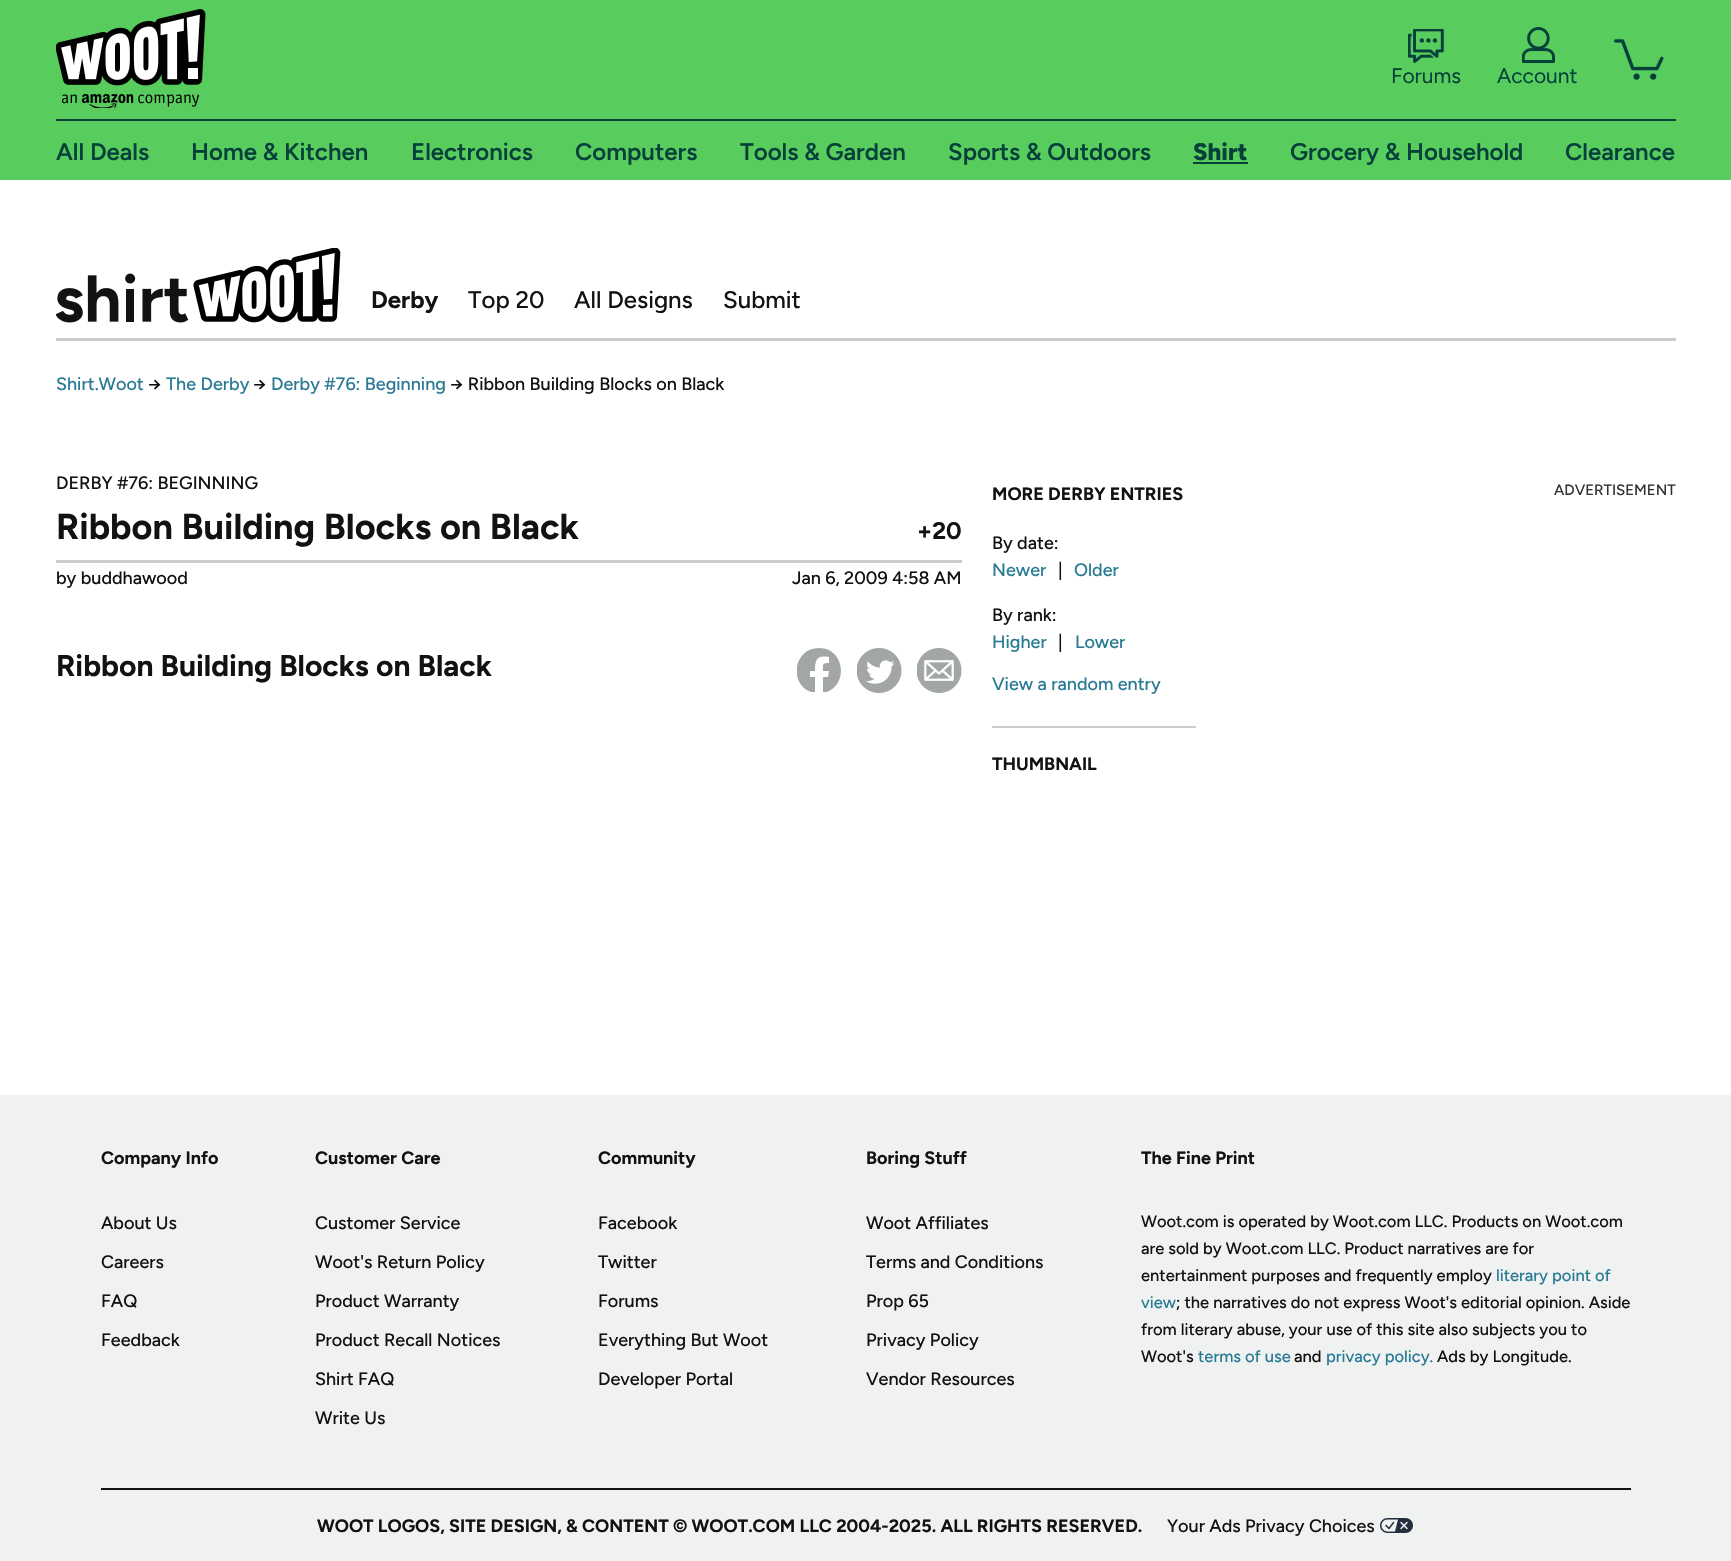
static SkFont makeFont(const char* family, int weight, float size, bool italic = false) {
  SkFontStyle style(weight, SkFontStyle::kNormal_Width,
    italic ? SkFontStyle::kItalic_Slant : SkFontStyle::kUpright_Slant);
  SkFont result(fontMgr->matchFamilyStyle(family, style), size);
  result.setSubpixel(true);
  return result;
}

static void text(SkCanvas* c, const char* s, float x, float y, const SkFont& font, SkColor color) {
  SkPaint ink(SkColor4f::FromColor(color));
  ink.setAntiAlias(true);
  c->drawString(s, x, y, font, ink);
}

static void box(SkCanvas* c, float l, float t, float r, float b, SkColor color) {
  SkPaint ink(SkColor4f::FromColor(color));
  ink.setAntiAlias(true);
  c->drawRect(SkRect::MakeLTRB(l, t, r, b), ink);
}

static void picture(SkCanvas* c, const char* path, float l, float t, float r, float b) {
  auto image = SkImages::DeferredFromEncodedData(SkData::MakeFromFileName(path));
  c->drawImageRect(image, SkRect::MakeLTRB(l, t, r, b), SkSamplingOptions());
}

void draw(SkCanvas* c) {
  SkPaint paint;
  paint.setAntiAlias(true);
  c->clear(0xffffffff);
  box(c, 0, 0, 1731, 180, 0xff58cd5d);
  box(c, 56, 119, 1676, 121, 0xff05413a);
  picture(c, "img_01.png", 56, 9, 206, 108);
  picture(c, "img_02.png", 1408, 29, 1444, 63);
  SkFont face1 = makeFont("Figtree", 400, 21);
  text(c, "Forums", 1391, 83, face1, 0xff05413a);
  picture(c, "img_03.png", 1522, 27, 1555, 63);
  text(c, "Account", 1497, 83, face1, 0xff05413a);
  picture(c, "img_04.png", 1614, 39, 1664, 80);
  SkFont face2 = makeFont("Figtree", 600, 24);
  text(c, "All Deals", 56, 160, face2, 0xff05413a);
  text(c, "Home & Kitchen", 191, 160, face2, 0xff05413a);
  text(c, "Electronics", 411, 160, face2, 0xff05413a);
  text(c, "Computers", 575, 160, face2, 0xff05413a);
  text(c, "Tools & Garden", 740, 160, face2, 0xff05413a);
  text(c, "Sports & Outdoors", 948, 160, face2, 0xff05413a);
  SkFont face3 = makeFont("Figtree", 800, 24);
  text(c, "Shirt", 1193, 160, face3, 0xff05413a);
  box(c, 1193, 162, 1248, 164, 0xff05413a);
  text(c, "Grocery & Household", 1290, 160, face2, 0xff05413a);
  text(c, "Clearance", 1565, 160, face2, 0xff05413a);
  box(c, 56, 338, 1676, 341, 0xffc8cccc);
  picture(c, "img_05.png", 56, 248, 341, 323);
  SkFont face4 = makeFont("Figtree", 700, 24);
  text(c, "Derby", 371, 308, face4, 0xff121212);
  SkFont face5 = makeFont("Figtree", 500, 24);
  text(c, "Top 20", 468, 308, face5, 0xff121212);
  text(c, "All Designs", 574, 308, face5, 0xff121212);
  text(c, "Submit", 723, 308, face5, 0xff121212);
  SkFont face6 = makeFont("Figtree", 500, 18);
  text(c, "Shirt.Woot", 56, 390, face6, 0xff297a94);
  text(c, "→", 148, 390, face6, 0xff121212);
  text(c, "The Derby", 166, 390, face6, 0xff297a94);
  text(c, "→", 253, 390, face6, 0xff121212);
  text(c, "Derby #76: Beginning", 271, 390, face6, 0xff297a94);
  text(c, "→ Ribbon Building Blocks on Black", 450, 390, face6, 0xff121212);
  text(c, "DERBY #76: BEGINNING", 56, 489, face6, 0xff121212);
  SkFont face7 = makeFont("Figtree", 700, 36);
  text(c, "Ribbon Building Blocks on Black", 56, 539, face7, 0xff121212);
  text(c, "+20", 917, 539, face4, 0xff121212);
  box(c, 56, 560, 962, 563, 0xffcccccc);
  text(c, "by buddhawood", 56, 584, face6, 0xff121212);
  text(c, "Jan 6, 2009 4:58 AM", 792, 584, face6, 0xff121212);
  SkFont face8 = makeFont("Figtree", 700, 30);
  text(c, "Ribbon Building Blocks on Black", 56, 676, face8, 0xff121212);
  c->save();
  c->clipRect(SkRect::MakeLTRB(797, 648, 842, 692));
  paint.setColor(0xffa2a6a6);
  c->drawPath(SkPathBuilder().moveTo(819, 648).cubicTo(792, 648, 788, 688, 815, 693).lineTo(815, 677).lineTo(810, 677).lineTo(810, 671).lineTo(815, 671).cubicTo(815, 659, 817, 655, 829, 657).lineTo(829, 663).cubicTo(822, 663, 823, 664, 823, 671).lineTo(829, 671).lineTo(828, 677).lineTo(823, 677).lineTo(823, 693).cubicTo(849, 688, 846, 648, 819, 648).detach(), paint);
  c->restore();
  picture(c, "img_06.png", 857, 648, 902, 693);
  picture(c, "img_07.png", 917, 648, 962, 693);
  SkFont face9 = makeFont("Figtree", 700, 18);
  text(c, "MORE DERBY ENTRIES", 992, 500, face9, 0xff121212);
  text(c, "By date:", 992, 549, face6, 0xff121212);
  text(c, "Newer", 992, 576, face6, 0xff297a94);
  text(c, "|", 1058, 576, face6, 0xff121212);
  text(c, "Older", 1074, 576, face6, 0xff297a94);
  text(c, "By rank:", 992, 621, face6, 0xff121212);
  text(c, "Higher", 992, 648, face6, 0xff297a94);
  text(c, "|", 1058, 648, face6, 0xff121212);
  text(c, "Lower", 1075, 648, face6, 0xff297a94);
  text(c, "View a random entry", 992, 690, face6, 0xff297a94);
  box(c, 992, 726, 1196, 728, 0xffcccccc);
  text(c, "THUMBNAIL", 992, 770, face9, 0xff121212);
  SkFont face10 = makeFont("Figtree", 500, 15);
  text(c, "ADVERTISEMENT", 1554, 495, face10, 0xff333333);
  box(c, 0, 1095, 1731, 1561, 0xfff0f2f2);
  box(c, 101, 1488, 1631, 1490, 0xff121212);
  text(c, "Company Info", 101, 1164, face9, 0xff121212);
  text(c, "About Us", 101, 1229, face6, 0xff121212);
  text(c, "Careers", 101, 1268, face6, 0xff121212);
  text(c, "FAQ", 101, 1307, face6, 0xff121212);
  text(c, "Feedback", 101, 1346, face6, 0xff121212);
  text(c, "Customer Care", 315, 1164, face9, 0xff121212);
  text(c, "Customer Service", 315, 1229, face6, 0xff121212);
  text(c, "Woot's Return Policy", 315, 1268, face6, 0xff121212);
  text(c, "Product Warranty", 315, 1307, face6, 0xff121212);
  text(c, "Product Recall Notices", 315, 1346, face6, 0xff121212);
  text(c, "Shirt FAQ", 315, 1385, face6, 0xff121212);
  text(c, "Write Us", 315, 1424, face6, 0xff121212);
  text(c, "Community", 598, 1164, face9, 0xff121212);
  text(c, "Facebook", 598, 1229, face6, 0xff121212);
  text(c, "Twitter", 598, 1268, face6, 0xff121212);
  text(c, "Forums", 598, 1307, face6, 0xff121212);
  text(c, "Everything But Woot", 598, 1346, face6, 0xff121212);
  text(c, "Developer Portal", 598, 1385, face6, 0xff121212);
  text(c, "Boring Stuff", 866, 1164, face9, 0xff121212);
  text(c, "Woot Affiliates", 866, 1229, face6, 0xff121212);
  text(c, "Terms and Conditions", 866, 1268, face6, 0xff121212);
  text(c, "Prop 65", 866, 1307, face6, 0xff121212);
  text(c, "Privacy Policy", 866, 1346, face6, 0xff121212);
  text(c, "Vendor Resources", 866, 1385, face6, 0xff121212);
  text(c, "The Fine Print", 1141, 1164, face9, 0xff121212);
  SkFont face11 = makeFont("Figtree", 500, 16.5f);
  text(c, "Woot.com is operated by Woot.com LLC. Products on Woot.com", 1141, 1227, face11, 0xff121212);
  text(c, "are sold by Woot.com LLC. Product narratives are for", 1141, 1254, face11, 0xff121212);
  text(c, "entertainment purposes and frequently employ", 1141, 1281, face11, 0xff121212);
  text(c, "literary point of", 1496, 1281, face11, 0xff297a94);
  text(c, "view", 1141, 1308, face11, 0xff297a94);
  text(c, "; the narratives do not express Woot's editorial opinion. Aside", 1176, 1308, face11, 0xff121212);
  text(c, "from literary abuse, your use of this site also subjects you to", 1141, 1335, face11, 0xff121212);
  text(c, "Woot's", 1141, 1362, face11, 0xff121212);
  text(c, "terms of use", 1198, 1362, face11, 0xff297a94);
  text(c, "and", 1294, 1362, face11, 0xff121212);
  text(c, "privacy policy.", 1326, 1362, face11, 0xff297a94);
  text(c, "Ads by Longitude.", 1437, 1362, face11, 0xff121212);
  text(c, "WOOT LOGOS, SITE DESIGN, & CONTENT © WOOT.COM LLC 2004-2025. ALL RIGHTS RESERVED.", 317, 1532, face9, 0xff121212);
  text(c, "Your Ads Privacy Choices", 1167, 1532, face6, 0xff121212);
  picture(c, "img_08.png", 1380, 1518, 1413, 1533);
}
